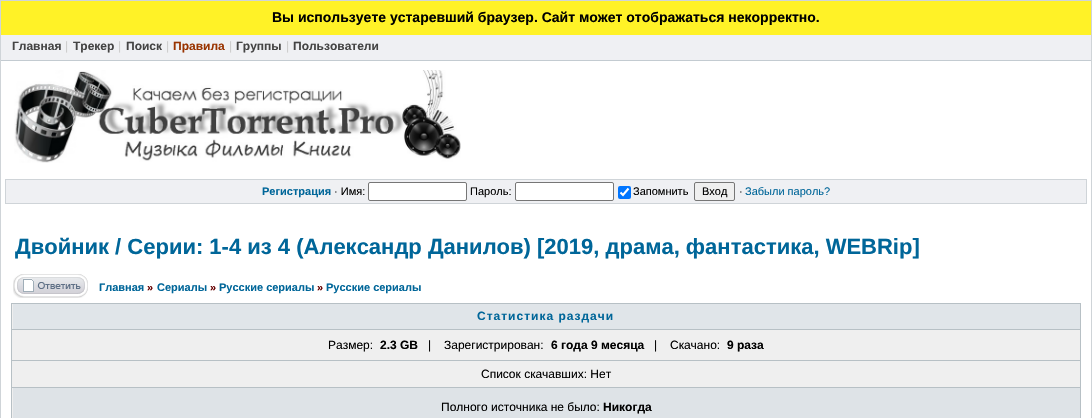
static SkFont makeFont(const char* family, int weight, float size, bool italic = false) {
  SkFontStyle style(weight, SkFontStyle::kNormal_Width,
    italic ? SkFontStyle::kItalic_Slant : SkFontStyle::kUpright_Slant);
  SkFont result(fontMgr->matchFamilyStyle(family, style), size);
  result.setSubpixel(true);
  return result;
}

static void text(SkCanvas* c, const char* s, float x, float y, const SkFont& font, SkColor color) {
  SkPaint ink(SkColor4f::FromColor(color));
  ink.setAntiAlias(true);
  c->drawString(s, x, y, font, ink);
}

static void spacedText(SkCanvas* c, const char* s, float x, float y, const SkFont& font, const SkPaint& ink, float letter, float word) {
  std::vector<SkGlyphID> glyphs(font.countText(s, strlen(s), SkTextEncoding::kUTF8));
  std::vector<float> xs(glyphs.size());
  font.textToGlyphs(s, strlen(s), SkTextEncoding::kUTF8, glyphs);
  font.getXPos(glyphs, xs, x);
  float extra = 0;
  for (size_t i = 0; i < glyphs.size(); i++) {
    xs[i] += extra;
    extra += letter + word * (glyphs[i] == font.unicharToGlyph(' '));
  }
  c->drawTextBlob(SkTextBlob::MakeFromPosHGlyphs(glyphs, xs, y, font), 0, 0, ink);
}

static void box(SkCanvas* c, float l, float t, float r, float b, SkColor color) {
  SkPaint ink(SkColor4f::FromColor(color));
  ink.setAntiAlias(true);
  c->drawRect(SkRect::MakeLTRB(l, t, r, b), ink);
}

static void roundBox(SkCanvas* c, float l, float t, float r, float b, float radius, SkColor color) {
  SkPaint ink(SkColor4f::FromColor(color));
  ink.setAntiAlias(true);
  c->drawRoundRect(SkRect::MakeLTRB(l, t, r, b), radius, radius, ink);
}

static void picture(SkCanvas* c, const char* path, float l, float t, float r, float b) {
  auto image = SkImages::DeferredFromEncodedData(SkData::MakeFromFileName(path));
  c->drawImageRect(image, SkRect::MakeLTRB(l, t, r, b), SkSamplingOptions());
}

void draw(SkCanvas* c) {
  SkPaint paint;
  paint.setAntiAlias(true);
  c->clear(0xffffffff);
  paint.setStyle(SkPaint::kStroke_Style);
  paint.setStrokeWidth(1);
  paint.setColor(0xffcfd4d8);
  c->drawRect(SkRect::MakeLTRB(0.5f, 0.5f, 1091.5f, 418.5f), paint);
  box(c, 1, 1, 1091, 35, 0xfffff227);
  SkFont face1 = makeFont("Liberation Sans", 700, 14);
  text(c, "Вы используете устаревший браузер. Сайт может отображаться некорректно.", 272, 22, face1, 0xff000000);
  box(c, 1, 35, 1091, 60, 0xffeff0f3);
  box(c, 1, 60, 1091, 61, 0xffc3cbd1);
  SkFont face2 = makeFont("Liberation Sans", 700, 12);
  text(c, "Главная", 12, 50, face2, 0xff444444);
  SkFont face3 = makeFont("Liberation Sans", 400, 12);
  text(c, "|", 65, 50, face3, 0xffcdcdcd);
  text(c, "Трекер", 73, 50, face2, 0xff444444);
  text(c, "|", 118, 50, face3, 0xffcdcdcd);
  text(c, "Поиск", 126, 50, face2, 0xff444444);
  text(c, "|", 166, 50, face3, 0xffcdcdcd);
  text(c, "Правила", 173, 50, face2, 0xff993300);
  text(c, "|", 229, 50, face3, 0xffcdcdcd);
  text(c, "Группы", 236, 50, face2, 0xff444444);
  text(c, "|", 286, 50, face3, 0xffcdcdcd);
  text(c, "Пользователи", 293, 50, face2, 0xff444444);
  picture(c, "img_01.png", 14, 70, 461, 163);
  paint.setStyle(SkPaint::kFill_Style);
  paint.setColor(0xffeff0f3);
  c->drawRect(SkRect::MakeLTRB(5.5f, 179.5f, 1086.5f, 203.5f), paint);
  paint.setStyle(SkPaint::kStroke_Style);
  paint.setColor(0xffcfd4d8);
  c->drawRect(SkRect::MakeLTRB(5.5f, 179.5f, 1086.5f, 203.5f), paint);
  SkFont face4 = makeFont("Liberation Sans", 700, 11);
  text(c, "Регистрация", 262, 195, face4, 0xff006699);
  SkFont face5 = makeFont("Liberation Sans", 400, 11);
  text(c, "· Имя:", 334, 195, face5, 0xff000000);
  paint.setStyle(SkPaint::kFill_Style);
  paint.setColor(0xffffffff);
  c->drawRoundRect(SkRect::MakeLTRB(368.5f, 182.5f, 466.5f, 200.5f), 1.5f, 1.5f, paint);
  paint.setStyle(SkPaint::kStroke_Style);
  paint.setColor(0xff767676);
  c->drawRoundRect(SkRect::MakeLTRB(368.5f, 182.5f, 466.5f, 200.5f), 1.5f, 1.5f, paint);
  text(c, "Пароль:", 470, 195, face5, 0xff000000);
  paint.setStyle(SkPaint::kFill_Style);
  paint.setColor(0xffffffff);
  c->drawRoundRect(SkRect::MakeLTRB(515.5f, 182.5f, 613.5f, 200.5f), 1.5f, 1.5f, paint);
  paint.setStyle(SkPaint::kStroke_Style);
  paint.setColor(0xff767676);
  c->drawRoundRect(SkRect::MakeLTRB(515.5f, 182.5f, 613.5f, 200.5f), 1.5f, 1.5f, paint);
  roundBox(c, 618, 186, 631, 199, 2, 0xff0075ff);
  paint.setStrokeWidth(2.1f);
  paint.setColor(0xffffffff);
  c->drawPath(SkPathBuilder().moveTo(620.5f, 192.5f).lineTo(623, 195).lineTo(628.5f, 188.5f).detach(), paint);
  text(c, "Запомнить", 633, 195, face5, 0xff000000);
  paint.setStyle(SkPaint::kFill_Style);
  paint.setColor(0xffefefef);
  c->drawRoundRect(SkRect::MakeLTRB(694.5f, 182.5f, 734.5f, 200.5f), 1.5f, 1.5f, paint);
  paint.setStyle(SkPaint::kStroke_Style);
  paint.setStrokeWidth(1);
  paint.setColor(0xff767676);
  c->drawRoundRect(SkRect::MakeLTRB(694.5f, 182.5f, 734.5f, 200.5f), 1.5f, 1.5f, paint);
  text(c, "Вход", 702, 195, face5, 0xff000000);
  text(c, "·", 739, 195, face5, 0xff000000);
  text(c, "Забыли пароль?", 745, 195, face5, 0xff006699);
  SkFont face6 = makeFont("Liberation Sans", 700, 22);
  text(c, "Двойник / Серии: 1-4 из 4 (Александр Данилов) [2019, драма, фантастика, WEBRip]", 15, 254, face6, 0xff006699);
  picture(c, "img_02.png", 13, 274, 88, 298);
  text(c, "Главная", 99, 291, face4, 0xff006699);
  text(c, "»", 147, 291, face4, 0xff660000);
  text(c, "Сериалы", 157, 291, face4, 0xff006699);
  text(c, "»", 210, 291, face4, 0xff660000);
  text(c, "Русские сериалы", 219, 291, face4, 0xff006699);
  text(c, "»", 317, 291, face4, 0xff660000);
  text(c, "Русские сериалы", 326, 291, face4, 0xff006699);
  box(c, 11, 303, 1080, 418, 0xffb7c0c5);
  box(c, 12, 304, 1080, 418, 0xffefefef);
  box(c, 13, 304, 1080, 329, 0xffe0e5e9);
  box(c, 1080, 303, 1081, 418, 0xffb7c0c5);
  box(c, 11, 329, 1081, 330, 0xffb7c0c5);
  paint.setStyle(SkPaint::kFill_Style);
  paint.setColor(0xff006699);
  spacedText(c, "Статистика раздачи", 477, 320, face2, paint, 1, 0);
  box(c, 11, 360, 1081, 361, 0xffb7c0c5);
  text(c, "Размер:", 328, 349, face3, 0xff000000);
  text(c, "2.3 GB", 380, 349, face2, 0xff000000);
  text(c, "|", 428, 349, face3, 0xff000000);
  text(c, "Зарегистрирован:", 444, 349, face3, 0xff000000);
  text(c, "6 года 9 месяца", 551, 349, face2, 0xff000000);
  text(c, "|", 654, 349, face3, 0xff000000);
  text(c, "Скачано:", 670, 349, face3, 0xff000000);
  text(c, "9 раза", 727, 349, face2, 0xff000000);
  box(c, 11, 387, 1081, 388, 0xffb7c0c5);
  text(c, "Список скачавших: Нет", 481, 378, face3, 0xff000000);
  box(c, 13, 388, 1080, 418, 0xffdee3e7);
  text(c, "Полного источника не было:", 441, 411, face3, 0xff000000);
  text(c, "Никогда", 603, 411, face2, 0xff000000);
}
